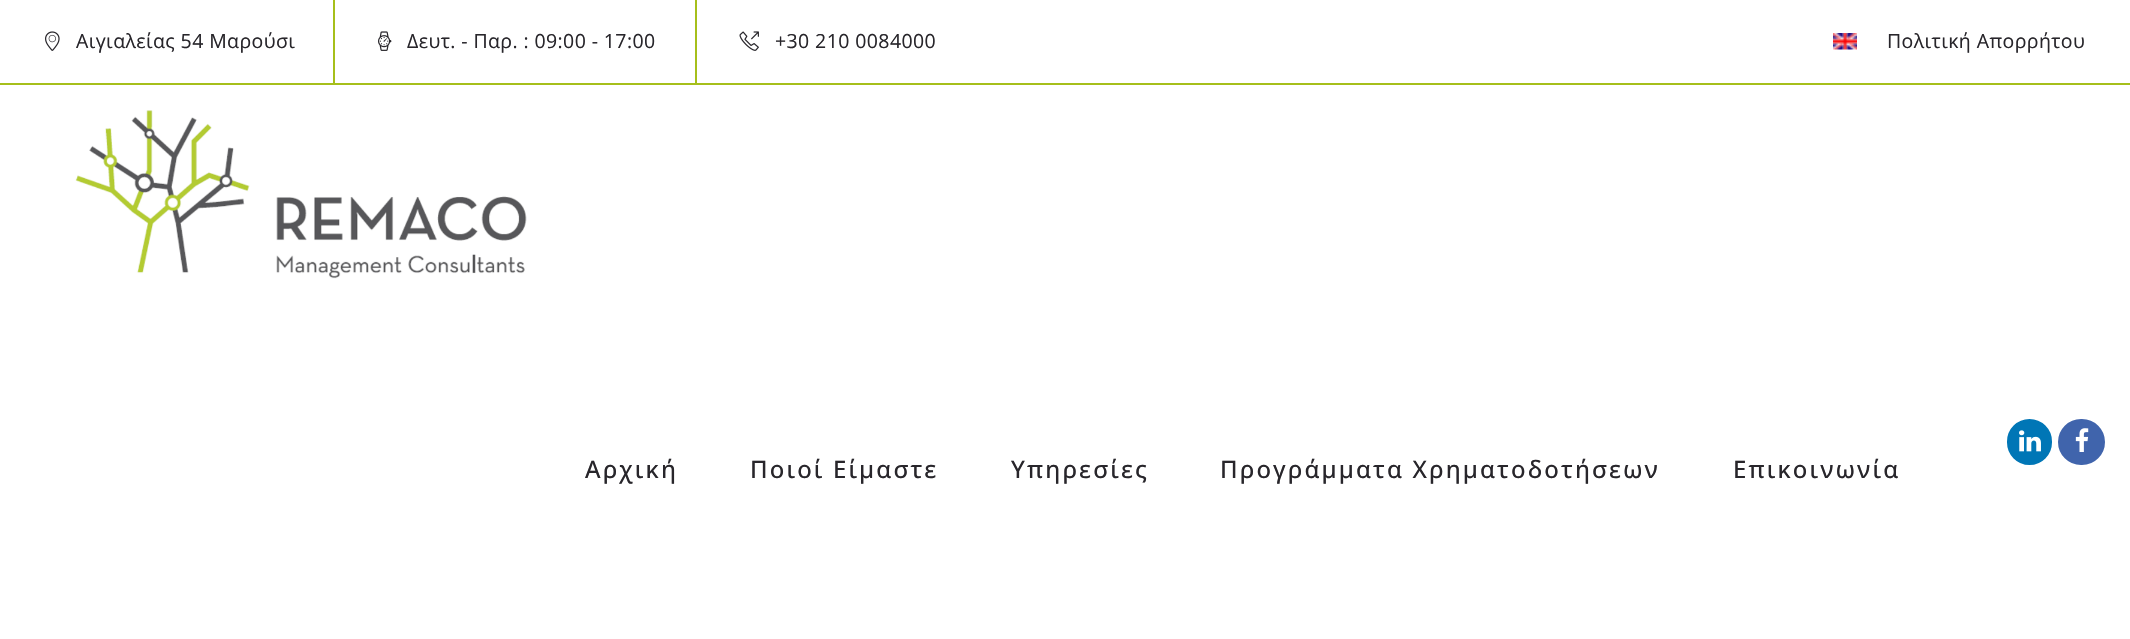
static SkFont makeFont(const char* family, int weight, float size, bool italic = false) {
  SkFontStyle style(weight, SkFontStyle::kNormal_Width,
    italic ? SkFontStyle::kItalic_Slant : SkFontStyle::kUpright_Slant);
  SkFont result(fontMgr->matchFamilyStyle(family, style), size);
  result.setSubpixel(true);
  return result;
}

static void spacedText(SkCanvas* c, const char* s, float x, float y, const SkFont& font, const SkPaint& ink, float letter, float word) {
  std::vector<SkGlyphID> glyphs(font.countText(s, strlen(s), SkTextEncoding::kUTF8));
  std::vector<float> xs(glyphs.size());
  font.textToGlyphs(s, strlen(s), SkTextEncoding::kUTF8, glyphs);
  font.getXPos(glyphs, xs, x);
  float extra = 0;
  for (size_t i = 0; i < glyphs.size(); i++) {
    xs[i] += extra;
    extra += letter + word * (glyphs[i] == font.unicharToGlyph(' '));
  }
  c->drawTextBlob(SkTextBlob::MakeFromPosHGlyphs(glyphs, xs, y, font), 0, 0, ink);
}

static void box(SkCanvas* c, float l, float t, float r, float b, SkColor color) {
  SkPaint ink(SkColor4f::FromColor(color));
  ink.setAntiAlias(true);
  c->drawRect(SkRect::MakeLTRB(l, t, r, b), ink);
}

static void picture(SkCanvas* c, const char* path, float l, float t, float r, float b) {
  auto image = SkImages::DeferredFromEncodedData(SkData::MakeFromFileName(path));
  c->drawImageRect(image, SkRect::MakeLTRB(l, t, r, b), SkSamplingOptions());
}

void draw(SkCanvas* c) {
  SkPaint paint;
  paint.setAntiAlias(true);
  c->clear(0xffffffff);
  box(c, 0, 83, 2130, 85, 0xffa6bf1b);
  picture(c, "img_01.png", 45, 31, 60, 51);
  SkFont face1 = makeFont("Open Sans", 400, 19.5f);
  paint.setColor(0xff28262b);
  spacedText(c, "Αιγιαλείας 54 Μαρούσι", 76, 48, face1, paint, 0.4f, 0);
  box(c, 333, 0, 335, 84, 0xffa6bf1b);
  picture(c, "img_02.png", 378, 31, 392, 51);
  spacedText(c, "Δευτ. - Παρ. : 09:00 - 17:00", 407, 48, face1, paint, 0.4f, 0);
  box(c, 695, 0, 697, 84, 0xffa6bf1b);
  picture(c, "img_03.png", 739, 31, 759, 51);
  spacedText(c, "+30 210 0084000", 775, 48, face1, paint, 0.4f, 0);
  picture(c, "img_04.png", 1833, 33, 1857, 50);
  spacedText(c, "Πολιτική Απορρήτου", 1887, 48, face1, paint, 0.4f, 0);
  picture(c, "img_05.png", 75, 110, 527, 279);
  paint.setColor(0xff0076b6);
  c->drawRoundRect(SkRect::MakeLTRB(2008, 420, 2051, 464), 21.5f, 21.5f, paint);
  paint.setStyle(SkPaint::kStroke_Style);
  paint.setStrokeWidth(2);
  c->drawRoundRect(SkRect::MakeLTRB(2008, 420, 2051, 464), 21.5f, 21.5f, paint);
  picture(c, "img_06.png", 2019, 430, 2041, 452);
  paint.setStyle(SkPaint::kFill_Style);
  paint.setColor(0xff4064ac);
  c->drawRoundRect(SkRect::MakeLTRB(2059, 420, 2104, 464), 22, 22, paint);
  paint.setStyle(SkPaint::kStroke_Style);
  c->drawRoundRect(SkRect::MakeLTRB(2059, 420, 2104, 464), 22, 22, paint);
  picture(c, "img_07.png", 2075, 428, 2089, 452);
  SkFont face2 = makeFont("Open Sans", 500, 24);
  paint.setStyle(SkPaint::kFill_Style);
  paint.setColor(0xff28262b);
  spacedText(c, "Αρχική", 585, 478, face2, paint, 2.15f, 0);
  spacedText(c, "Ποιοί Είμαστε", 750, 478, face2, paint, 2.15f, 0);
  spacedText(c, "Υπηρεσίες", 1011, 478, face2, paint, 2.15f, 0);
  spacedText(c, "Προγράμματα Χρηματοδοτήσεων", 1220, 478, face2, paint, 2.15f, 0);
  spacedText(c, "Επικοινωνία", 1733, 478, face2, paint, 2.15f, 0);
}
